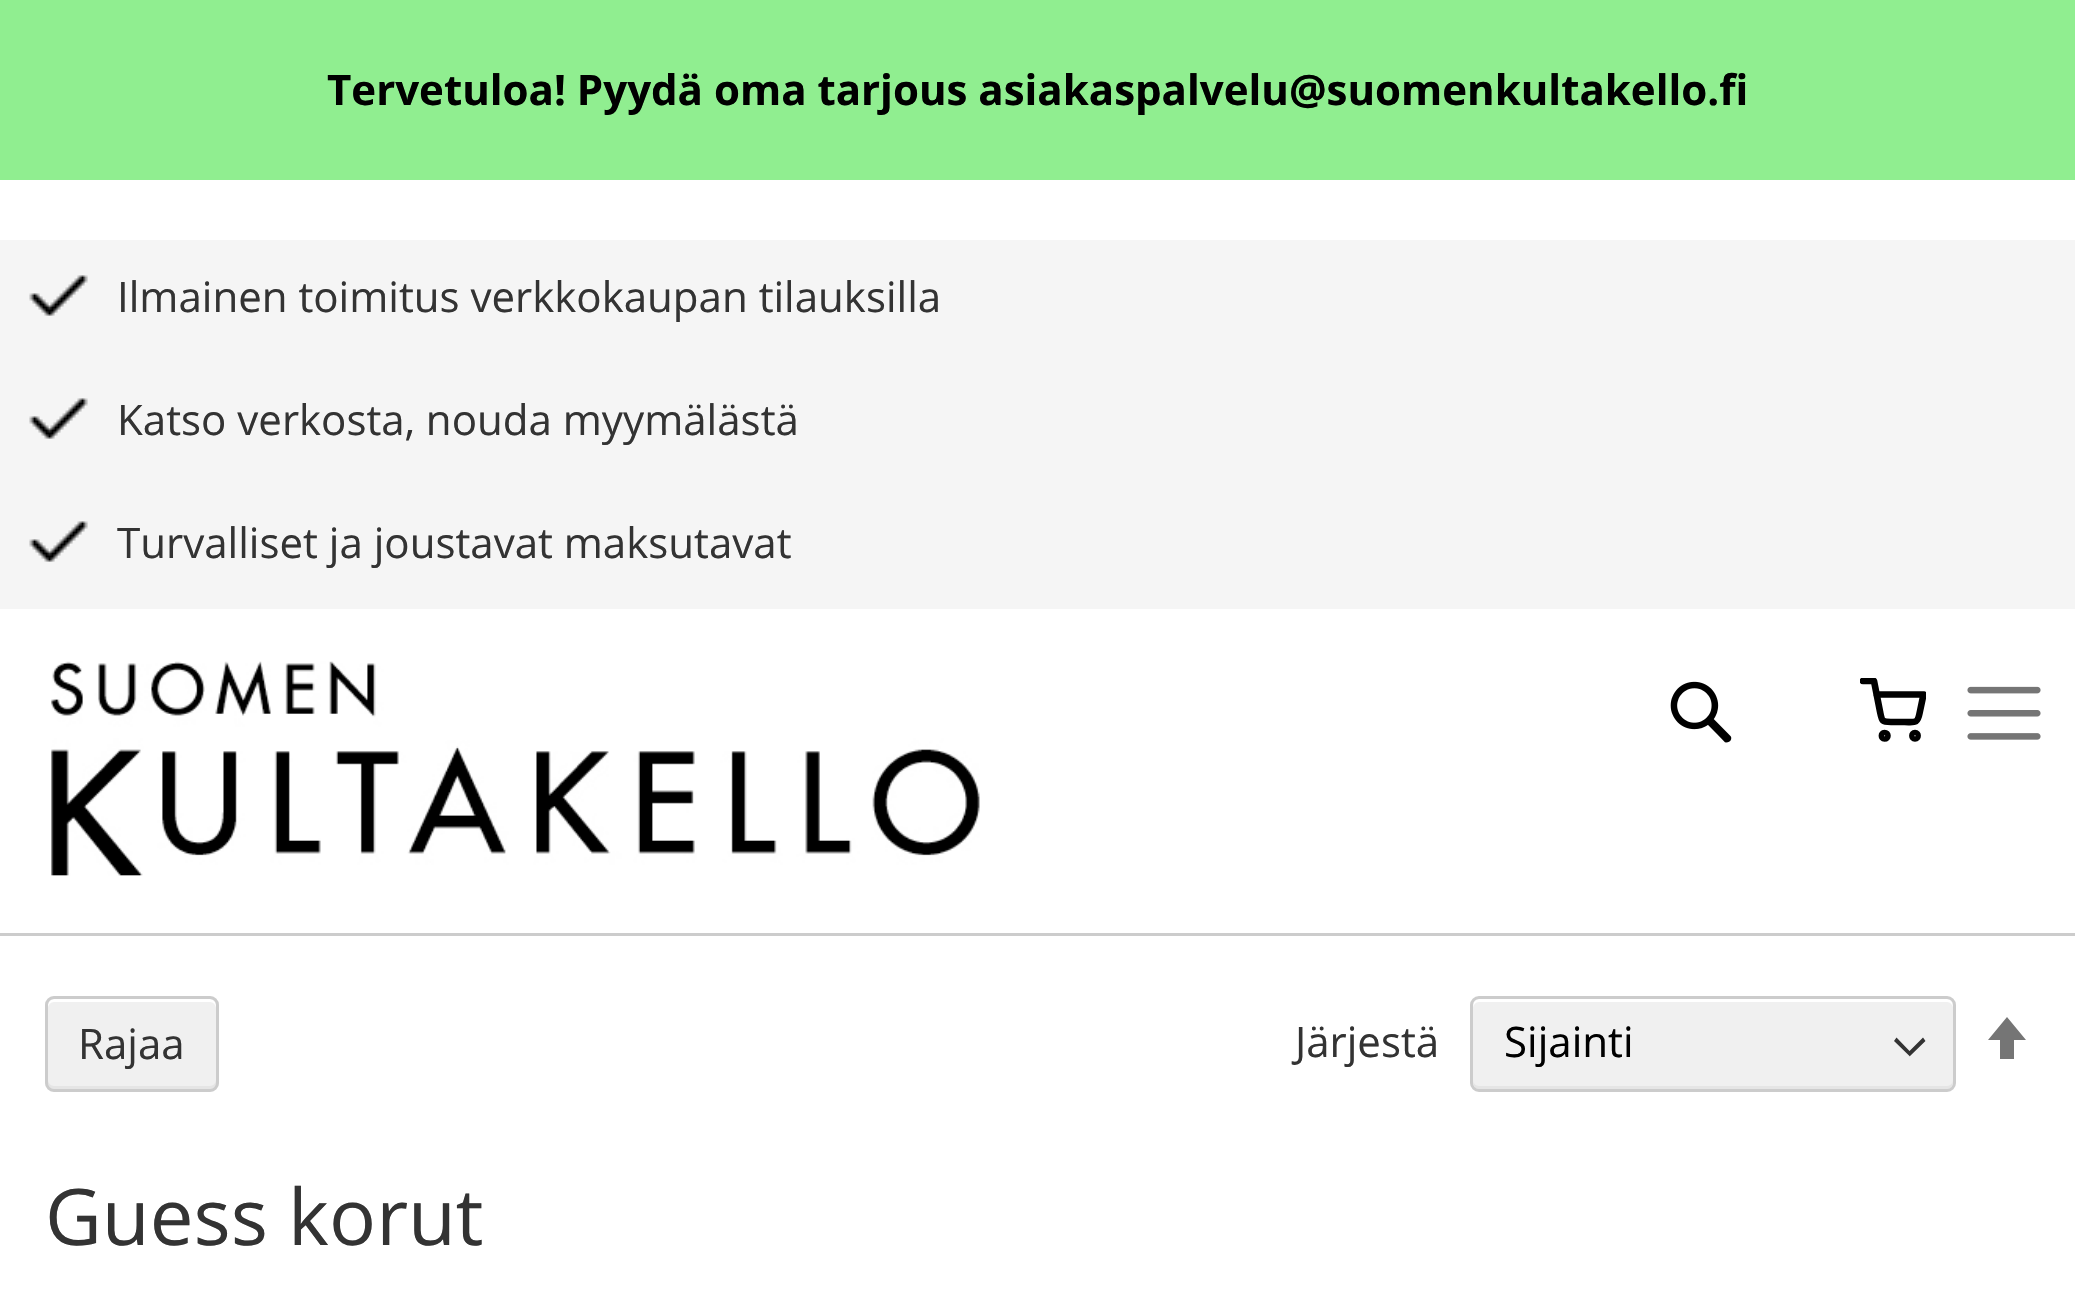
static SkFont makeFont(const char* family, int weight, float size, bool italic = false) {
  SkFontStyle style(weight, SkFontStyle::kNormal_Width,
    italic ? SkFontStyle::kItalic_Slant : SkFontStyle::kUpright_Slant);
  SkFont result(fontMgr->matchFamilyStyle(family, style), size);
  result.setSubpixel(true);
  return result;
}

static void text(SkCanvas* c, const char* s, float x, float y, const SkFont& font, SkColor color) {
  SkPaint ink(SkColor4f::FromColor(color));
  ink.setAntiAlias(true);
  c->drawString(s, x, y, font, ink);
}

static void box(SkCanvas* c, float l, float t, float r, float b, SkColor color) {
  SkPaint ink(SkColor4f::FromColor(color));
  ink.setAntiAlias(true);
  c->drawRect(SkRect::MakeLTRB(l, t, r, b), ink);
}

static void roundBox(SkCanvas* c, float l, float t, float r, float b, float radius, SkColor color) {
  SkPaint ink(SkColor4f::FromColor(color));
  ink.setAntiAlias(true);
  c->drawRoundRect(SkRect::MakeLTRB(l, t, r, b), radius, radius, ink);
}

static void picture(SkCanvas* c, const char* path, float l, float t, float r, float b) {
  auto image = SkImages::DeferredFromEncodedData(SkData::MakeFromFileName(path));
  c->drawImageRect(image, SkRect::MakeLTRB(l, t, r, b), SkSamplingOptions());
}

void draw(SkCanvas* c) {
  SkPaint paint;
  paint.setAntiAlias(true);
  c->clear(0xffffffff);
  box(c, 0, 0, 2075, 180, 0xff90ee90);
  SkFont face1 = makeFont("Open Sans", 700, 42);
  text(c, "Tervetuloa! Pyydä oma tarjous asiakaspalvelu@suomenkultakello.fi", 327, 105, face1, 0xff000000);
  box(c, 0, 933, 2075, 936, 0xffcccccc);
  box(c, 0, 240, 2075, 609, 0xfff5f5f5);
  picture(c, "img_01.png", 29, 275, 88, 316);
  SkFont face2 = makeFont("Open Sans", 400, 42);
  text(c, "Ilmainen toimitus verkkokaupan tilauksilla", 117, 312, face2, 0xff333333);
  picture(c, "img_01.png", 29, 398, 88, 439);
  text(c, "Katso verkosta, nouda myymälästä", 117, 435, face2, 0xff333333);
  picture(c, "img_01.png", 29, 521, 88, 562);
  text(c, "Turvalliset ja joustavat maksutavat", 117, 558, face2, 0xff333333);
  picture(c, "img_02.png", 51, 661, 980, 876);
  picture(c, "img_03.png", 1670, 681, 1732, 743);
  paint.setStyle(SkPaint::kStroke_Style);
  paint.setStrokeWidth(6.6f);
  paint.setStrokeCap(SkPaint::kRound_Cap);
  paint.setStrokeJoin(SkPaint::kRound_Join);
  paint.setColor(0xff000000);
  c->drawPath(SkPathBuilder().moveTo(1884.5f, 738.5f).cubicTo(1888.5f, 738.5f, 1888.5f, 733, 1884.5f, 733).cubicTo(1881, 733, 1881, 738.5f, 1884.5f, 738.5f).close().moveTo(1915, 738.5f).cubicTo(1918.5f, 738.5f, 1918.5f, 733, 1915, 733).cubicTo(1911.5f, 733, 1911.5f, 738.5f, 1915, 738.5f).close().detach(), paint);
  c->save();
  c->clipRect(SkRect::MakeLTRB(1860, 678, 1926, 744));
  c->drawPath(SkPathBuilder().moveTo(1863, 681).lineTo(1874, 681).lineTo(1880, 711.5f).cubicTo(1882, 721, 1881.5f, 722, 1891, 722).lineTo(1904.5f, 722).cubicTo(1914.5f, 722, 1917.5f, 724, 1919.5f, 713.5f).lineTo(1923.5f, 694.5f).lineTo(1876.5f, 694.5f).detach(), paint);
  c->restore();
  picture(c, "img_04.png", 1967, 686, 2041, 740);
  text(c, "Järjestä", 1295, 1057, face2, 0xff333333);
  roundBox(c, 1473, 999, 1953, 1089, 6, 0xfff0f0f0);
  paint.setStyle(SkPaint::kFill_Style);
  paint.setColor(0xff333333);
  c->drawPath(SkPathBuilder(SkPathFillType::kEvenOdd).moveTo(1910, 1056).lineTo(1925.5f, 1041).lineTo(1923, 1037.5f).lineTo(1909.5f, 1051).lineTo(1896.5f, 1037.5f).lineTo(1894, 1041).lineTo(1910, 1056.5f).close().detach(), paint);
  paint.setColor(0x4dcccccc);
  c->drawPath(SkPathBuilder().moveTo(1473, 1080).cubicTo(1473, 1084, 1474, 1089, 1479, 1089).lineTo(1947, 1089).cubicTo(1952, 1089, 1953, 1084, 1953, 1080).cubicTo(1953, 1083, 1950, 1086, 1947, 1086).lineTo(1479, 1086).cubicTo(1476, 1086, 1473, 1083, 1473, 1080).close().detach(), paint);
  paint.setColor(0xffffffff);
  c->drawPath(SkPathBuilder().moveTo(1479, 1002).lineTo(1947, 1002).cubicTo(1950, 1002, 1953, 1005, 1953, 1008).cubicTo(1953, 1004, 1952, 999, 1947, 999).lineTo(1479, 999).cubicTo(1474, 999, 1473, 1004, 1473, 1008).cubicTo(1473, 1005, 1476, 1002, 1479, 1002).close().detach(), paint);
  paint.setStyle(SkPaint::kStroke_Style);
  paint.setStrokeWidth(3);
  paint.setStrokeCap(SkPaint::kButt_Cap);
  paint.setStrokeJoin(SkPaint::kMiter_Join);
  paint.setColor(0xffcccccc);
  c->drawRoundRect(SkRect::MakeLTRB(1471.5f, 997.5f, 1954.5f, 1090.5f), 7.5f, 7.5f, paint);
  text(c, "Sijainti", 1504, 1057, face2, 0xff000000);
  paint.setStyle(SkPaint::kFill_Style);
  paint.setColor(0xff757575);
  c->drawPath(SkPathBuilder().moveTo(2007, 1017).lineTo(1988, 1040).lineTo(2000, 1040).lineTo(2000, 1059).lineTo(2014, 1059).lineTo(2014, 1040).lineTo(2026, 1040).close().detach(), paint);
  SkFont face3 = makeFont("Open Sans", 400, 78);
  text(c, "Guess korut", 45, 1245, face3, 0xff333333);
  roundBox(c, 45, 996, 219, 1092, 9, 0xfff0f0f0);
  paint.setColor(0xffe5e5e5);
  c->drawPath(SkPathBuilder().moveTo(48, 1080).lineTo(48, 1083).cubicTo(48, 1086, 51, 1089, 54, 1089).lineTo(210, 1089).cubicTo(213, 1089, 216, 1086, 216, 1083).lineTo(216, 1080).cubicTo(216, 1083, 213, 1086, 210, 1086).lineTo(54, 1086).cubicTo(51, 1086, 48, 1083, 48, 1080).close().detach(), paint);
  paint.setColor(0xffffffff);
  c->drawPath(SkPathBuilder().moveTo(54, 1002).lineTo(210, 1002).cubicTo(213, 1002, 216, 1005, 216, 1008).lineTo(216, 1005).cubicTo(216, 1002, 213, 999, 210, 999).lineTo(54, 999).cubicTo(51, 999, 48, 1002, 48, 1005).lineTo(48, 1008).cubicTo(48, 1005, 51, 1002, 54, 1002).close().detach(), paint);
  paint.setStyle(SkPaint::kStroke_Style);
  paint.setColor(0xffcccccc);
  c->drawRoundRect(SkRect::MakeLTRB(46.5f, 997.5f, 217.5f, 1090.5f), 7.5f, 7.5f, paint);
  text(c, "Rajaa", 78, 1059, face2, 0xff333333);
}
